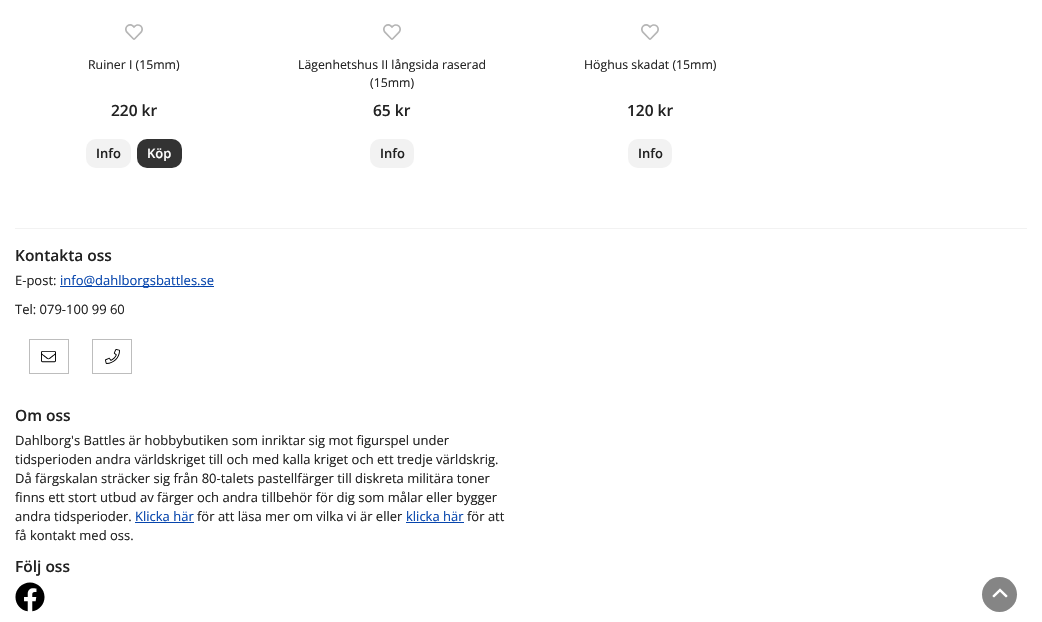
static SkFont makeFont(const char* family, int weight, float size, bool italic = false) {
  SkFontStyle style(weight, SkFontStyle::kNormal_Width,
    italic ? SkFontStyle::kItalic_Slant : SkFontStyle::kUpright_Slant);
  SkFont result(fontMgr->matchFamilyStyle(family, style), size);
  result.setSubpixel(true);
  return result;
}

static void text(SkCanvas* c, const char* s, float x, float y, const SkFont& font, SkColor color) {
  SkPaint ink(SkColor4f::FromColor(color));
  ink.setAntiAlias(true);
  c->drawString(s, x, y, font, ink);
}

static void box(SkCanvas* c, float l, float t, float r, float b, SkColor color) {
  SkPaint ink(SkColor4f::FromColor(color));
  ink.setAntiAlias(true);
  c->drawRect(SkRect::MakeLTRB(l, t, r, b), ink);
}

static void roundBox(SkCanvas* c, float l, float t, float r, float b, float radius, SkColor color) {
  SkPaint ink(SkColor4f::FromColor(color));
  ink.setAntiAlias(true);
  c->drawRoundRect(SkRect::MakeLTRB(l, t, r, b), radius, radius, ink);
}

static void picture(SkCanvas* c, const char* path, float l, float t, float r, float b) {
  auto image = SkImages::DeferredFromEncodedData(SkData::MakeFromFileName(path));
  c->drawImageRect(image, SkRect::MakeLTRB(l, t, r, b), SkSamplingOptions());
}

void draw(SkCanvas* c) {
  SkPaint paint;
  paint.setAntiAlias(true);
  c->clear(0xffffffff);
  picture(c, "img_01.png", 125, 24, 143, 40);
  SkFont face1 = makeFont("Open Sans", 400, 12.3f);
  text(c, "Ruiner I (15mm)", 88, 69, face1, 0xff222222);
  SkFont face2 = makeFont("Open Sans", 600, 15.5f);
  text(c, "220 kr", 111, 116, face2, 0xff222222);
  roundBox(c, 86, 139, 131, 168, 10, 0xfff2f2f2);
  SkFont face3 = makeFont("Open Sans", 600, 13);
  text(c, "Info", 96, 158, face3, 0xff222222);
  roundBox(c, 137, 139, 182, 168, 10, 0xff333333);
  text(c, "Köp", 147, 158, face3, 0xffffffff);
  picture(c, "img_01.png", 383, 24, 401, 40);
  text(c, "Lägenhetshus II långsida raserad", 298, 69, face1, 0xff222222);
  text(c, "(15mm)", 370, 87, face1, 0xff222222);
  text(c, "65 kr", 373, 116, face2, 0xff222222);
  roundBox(c, 370, 139, 414, 168, 10, 0xfff2f2f2);
  text(c, "Info", 380, 158, face3, 0xff222222);
  picture(c, "img_01.png", 641, 24, 659, 40);
  text(c, "Höghus skadat (15mm)", 584, 69, face1, 0xff222222);
  text(c, "120 kr", 627, 116, face2, 0xff222222);
  roundBox(c, 628, 139, 672, 168, 10, 0xfff2f2f2);
  text(c, "Info", 638, 158, face3, 0xff222222);
  box(c, 15, 228, 1027, 229, 0xfff2f2f2);
  text(c, "Kontakta oss", 15, 261, face2, 0xff222222);
  SkFont face4 = makeFont("Open Sans", 400, 13);
  text(c, "E-post:", 15, 285, face4, 0xff222222);
  box(c, 60, 286, 214, 287, 0xff0645ad);
  text(c, "info@dahlborgsbattles.se", 60, 285, face4, 0xff0645ad);
  text(c, "Tel: 079-100 99 60", 15, 314, face4, 0xff222222);
  paint.setStyle(SkPaint::kStroke_Style);
  paint.setStrokeWidth(1);
  paint.setColor(0xffbdbdbd);
  c->drawRect(SkRect::MakeLTRB(29.5f, 339.5f, 68.5f, 373.5f), paint);
  picture(c, "img_02.png", 41, 351, 56, 363);
  c->drawRect(SkRect::MakeLTRB(92.5f, 339.5f, 131.5f, 373.5f), paint);
  picture(c, "img_03.png", 105, 349, 120, 364);
  text(c, "Om oss", 15, 421, face2, 0xff222222);
  text(c, "Dahlborg's Battles är hobbybutiken som inriktar sig mot figurspel under", 15, 445, face4, 0xff222222);
  text(c, "tidsperioden andra världskriget till och med kalla kriget och ett tredje världskrig.", 15, 464, face4, 0xff222222);
  text(c, "Då färgskalan sträcker sig från 80-talets pastellfärger till diskreta militära toner", 15, 483, face4, 0xff222222);
  text(c, "finns ett stort utbud av färger och andra tillbehör för dig som målar eller bygger", 15, 502, face4, 0xff222222);
  text(c, "andra tidsperioder.", 15, 521, face4, 0xff222222);
  text(c, "Klicka här", 135, 521, face4, 0xff0645ad);
  box(c, 135, 522, 194, 523, 0xff0645ad);
  text(c, "för att läsa mer om vilka vi är eller", 197, 521, face4, 0xff222222);
  text(c, "klicka här", 406, 521, face4, 0xff0645ad);
  box(c, 406, 522, 464, 523, 0xff0645ad);
  text(c, "för att", 467, 521, face4, 0xff222222);
  text(c, "få kontakt med oss.", 15, 540, face4, 0xff222222);
  text(c, "Följ oss", 15, 572, face2, 0xff222222);
  picture(c, "img_04.png", 15, 582, 45, 612);
  paint.setStyle(SkPaint::kFill_Style);
  paint.setColor(0xff858585);
  c->drawCircle(999.5f, 594.5f, 17.5f, paint);
  picture(c, "img_05.png", 992, 588, 1008, 598);
}
